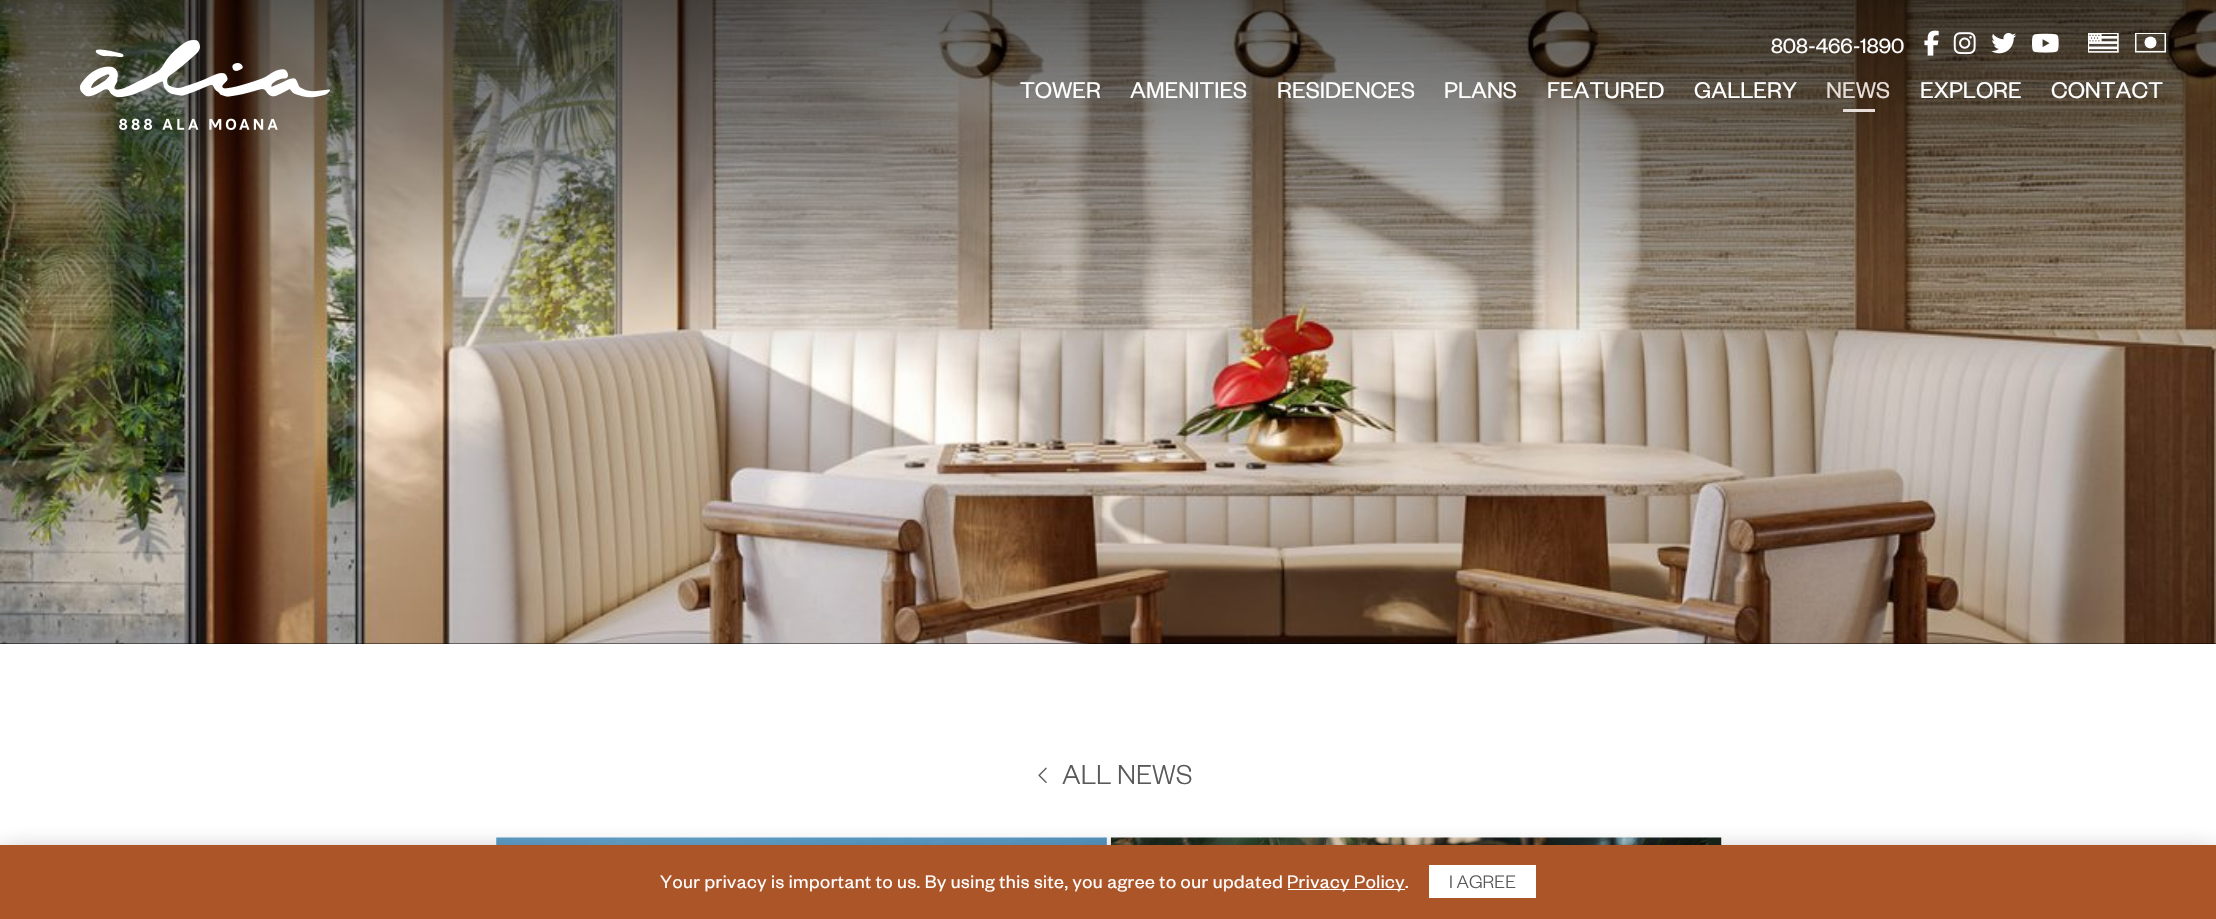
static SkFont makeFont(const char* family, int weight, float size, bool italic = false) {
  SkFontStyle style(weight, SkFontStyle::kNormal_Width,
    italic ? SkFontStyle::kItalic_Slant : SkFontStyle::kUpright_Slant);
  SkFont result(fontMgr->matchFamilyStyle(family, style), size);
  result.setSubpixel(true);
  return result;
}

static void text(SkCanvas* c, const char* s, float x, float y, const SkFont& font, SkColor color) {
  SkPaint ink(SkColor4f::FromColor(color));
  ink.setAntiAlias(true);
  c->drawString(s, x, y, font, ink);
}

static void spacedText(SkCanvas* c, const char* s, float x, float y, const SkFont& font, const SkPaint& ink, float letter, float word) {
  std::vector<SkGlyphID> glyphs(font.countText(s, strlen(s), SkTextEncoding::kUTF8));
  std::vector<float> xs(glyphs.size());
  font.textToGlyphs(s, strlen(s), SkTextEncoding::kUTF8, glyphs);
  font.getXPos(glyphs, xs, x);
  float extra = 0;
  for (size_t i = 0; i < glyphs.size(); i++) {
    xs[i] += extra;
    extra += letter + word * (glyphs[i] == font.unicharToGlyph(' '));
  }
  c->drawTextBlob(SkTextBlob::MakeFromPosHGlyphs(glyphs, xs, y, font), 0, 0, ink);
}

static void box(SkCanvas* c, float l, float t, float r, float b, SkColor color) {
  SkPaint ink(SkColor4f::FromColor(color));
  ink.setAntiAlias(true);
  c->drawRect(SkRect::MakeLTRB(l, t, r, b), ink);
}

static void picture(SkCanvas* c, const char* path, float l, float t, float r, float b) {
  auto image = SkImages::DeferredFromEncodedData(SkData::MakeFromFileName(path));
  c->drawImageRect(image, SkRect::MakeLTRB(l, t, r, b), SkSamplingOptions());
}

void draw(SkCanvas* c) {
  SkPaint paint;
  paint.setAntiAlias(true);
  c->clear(0xff000000);
  picture(c, "img_01.png", 0, 0, 2216, 644);
  picture(c, "img_02.png", 80, 40, 330, 130);
  SkFont face1 = makeFont("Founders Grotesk", 400, 22.5f);
  text(c, "808-466-1890", 1771, 53, face1, 0xffffffff);
  picture(c, "img_03.png", 1924, 30, 1939, 56);
  picture(c, "img_04.png", 1953, 32, 1976, 55);
  picture(c, "img_05.png", 1991, 33, 2017, 54);
  picture(c, "img_06.png", 2032, 33, 2059, 53);
  picture(c, "img_07.png", 2088, 33, 2119, 53);
  c->save();
  c->clipRect(SkRect::MakeLTRB(2135, 33, 2166, 53));
  paint.setColor(0xffffffff);
  c->drawPath(SkPathBuilder().moveTo(2164.5f, 34).lineTo(2164.5f, 51).lineTo(2136.5f, 51).lineTo(2136.5f, 34).lineTo(2164.5f, 34).moveTo(2166, 32.5f).lineTo(2135, 32.5f).lineTo(2135, 52.5f).lineTo(2166, 52.5f).close().detach(), paint);
  c->restore();
  c->drawCircle(2150.5f, 42.5f, 6, paint);
  SkFont face2 = makeFont("Founders Grotesk", 400, 25);
  text(c, "TOWER", 1020, 98, face2, 0xffffffff);
  text(c, "AMENITIES", 1130, 98, face2, 0xffffffff);
  text(c, "RESIDENCES", 1277, 98, face2, 0xffffffff);
  text(c, "PLANS", 1444, 98, face2, 0xffffffff);
  text(c, "FEATURED", 1547, 98, face2, 0xffffffff);
  text(c, "GALLERY", 1694, 98, face2, 0xffffffff);
  text(c, "NEWS", 1826, 98, face2, 0xffe7ddd8);
  box(c, 1843, 109, 1875, 112, 0xffe7ddd8);
  text(c, "EXPLORE", 1920, 98, face2, 0xffffffff);
  text(c, "CONTACT", 2051, 98, face2, 0xffffffff);
  box(c, 0, 644, 2216, 845, 0xffffffff);
  picture(c, "img_08.png", 1038, 767, 1047, 783);
  SkFont face3 = makeFont("Founders Grotesk", 300, 30);
  text(c, "ALL NEWS", 1062, 784, face3, 0xff58595b);
  picture(c, "img_09.png", 496, 837, 1722, 845);
  paint.setColor(0x80020202);
  paint.setMaskFilter(SkMaskFilter::MakeBlur(kNormal_SkBlurStyle, 15.5f));
  c->drawRect(SkRect::MakeLTRB(0, 858, 2216, 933), paint);
  paint.setMaskFilter(nullptr);
  box(c, 0, 845, 2216, 919, 0xffac5529);
  SkFont face4 = makeFont("Founders Grotesk", 400, 20);
  paint.setColor(0xffffffff);
  spacedText(c, "Your privacy is important to us. By using this site, you agree to our updated", 660, 888, face4, paint, 0.5f, 0);
  box(c, 1288, 889, 1405, 890, 0xffffffff);
  spacedText(c, "Privacy Policy.", 1287, 888, face4, paint, 0.5f, 0);
  box(c, 1429, 865, 1536, 898, 0xffffffff);
  SkFont face5 = makeFont("Founders Grotesk", 300, 20);
  text(c, "I AGREE", 1449, 888, face5, 0xff58595b);
}
